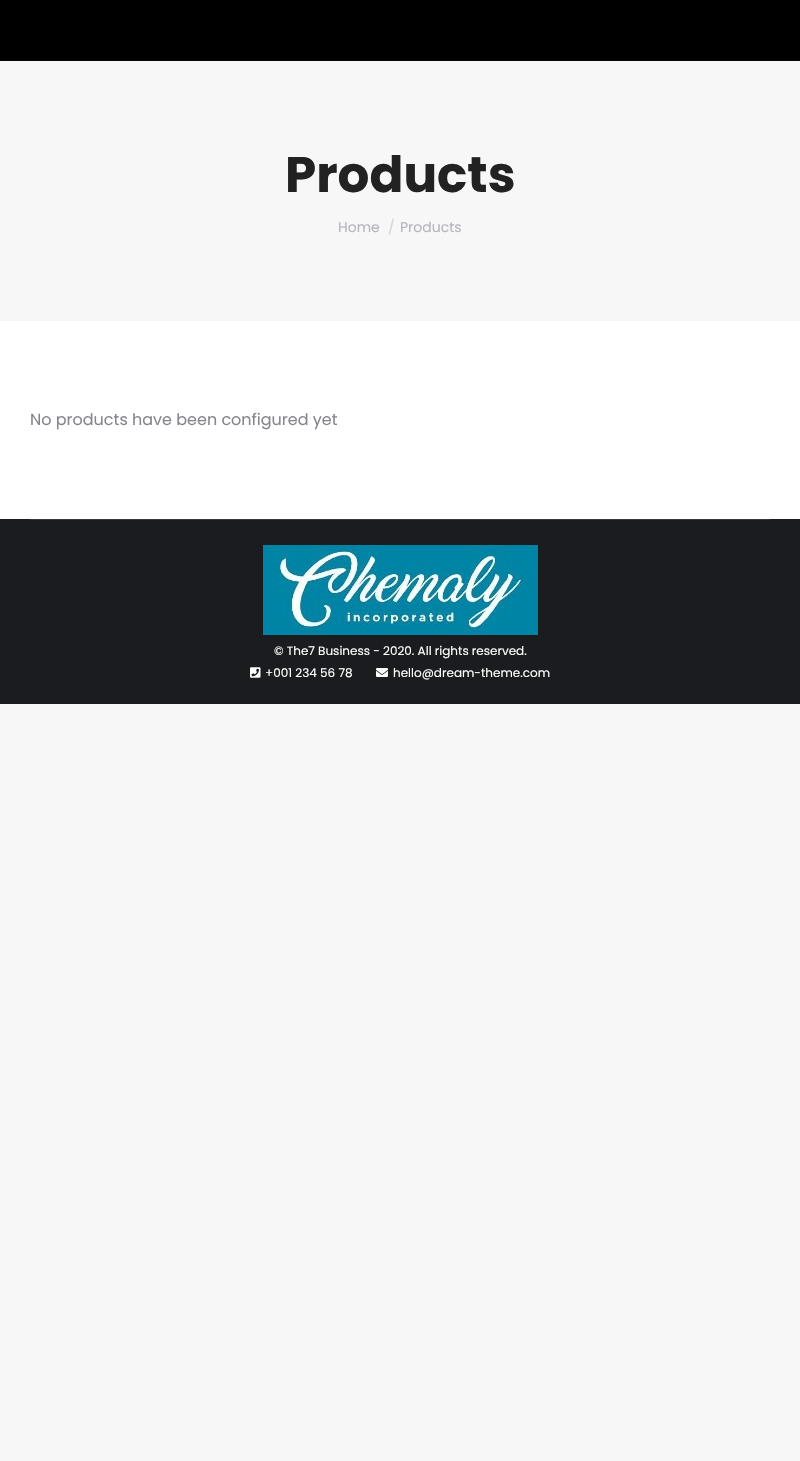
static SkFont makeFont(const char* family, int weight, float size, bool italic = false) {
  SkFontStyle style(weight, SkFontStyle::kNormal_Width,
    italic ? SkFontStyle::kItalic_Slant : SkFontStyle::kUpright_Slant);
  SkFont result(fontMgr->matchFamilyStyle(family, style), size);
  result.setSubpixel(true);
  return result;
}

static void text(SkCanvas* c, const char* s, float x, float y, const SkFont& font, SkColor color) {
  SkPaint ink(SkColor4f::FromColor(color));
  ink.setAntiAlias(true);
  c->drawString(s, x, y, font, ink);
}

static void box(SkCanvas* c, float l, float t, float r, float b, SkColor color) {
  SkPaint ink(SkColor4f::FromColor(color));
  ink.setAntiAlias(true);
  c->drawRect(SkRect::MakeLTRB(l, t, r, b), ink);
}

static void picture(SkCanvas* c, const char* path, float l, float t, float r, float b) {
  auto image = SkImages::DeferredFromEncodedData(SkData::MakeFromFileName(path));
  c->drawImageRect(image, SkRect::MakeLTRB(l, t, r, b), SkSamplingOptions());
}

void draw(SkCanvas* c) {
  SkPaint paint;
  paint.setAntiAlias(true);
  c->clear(0xfff7f7f7);
  box(c, 0, 321, 800, 519, 0xffffffff);
  box(c, 0, 0, 800, 60, 0xff000000);
  box(c, 0, 60, 800, 61, 0xff060606);
  SkFont face1 = makeFont("Poppins", 700, 50);
  text(c, "Products", 285, 192, face1, 0xff222222);
  SkFont face2 = makeFont("Poppins", 400, 14);
  text(c, "Home", 338, 232, face2, 0xffb4b5bb);
  text(c, "/", 388, 232, face2, 0xffd6d6d9);
  text(c, "Products", 400, 232, face2, 0xffb4b5bb);
  SkFont face3 = makeFont("Poppins", 400, 16);
  text(c, "No products have been configured yet", 30, 425, face3, 0xff85868c);
  box(c, 0, 519, 800, 704, 0xff1a1c20);
  box(c, 30, 519, 770, 520, 0xff35373b);
  picture(c, "img_01.png", 263, 545, 538, 635);
  SkFont face4 = makeFont("Poppins", 400, 12);
  text(c, "© The7 Business - 2020. All rights reserved.", 274, 655, face4, 0xffffffff);
  picture(c, "img_02.png", 250, 667, 261, 678);
  text(c, "+001 234 56 78", 265, 677, face4, 0xffffffff);
  picture(c, "img_03.png", 376, 668, 388, 677);
  text(c, "hello@dream-theme.com", 393, 677, face4, 0xffffffff);
}
